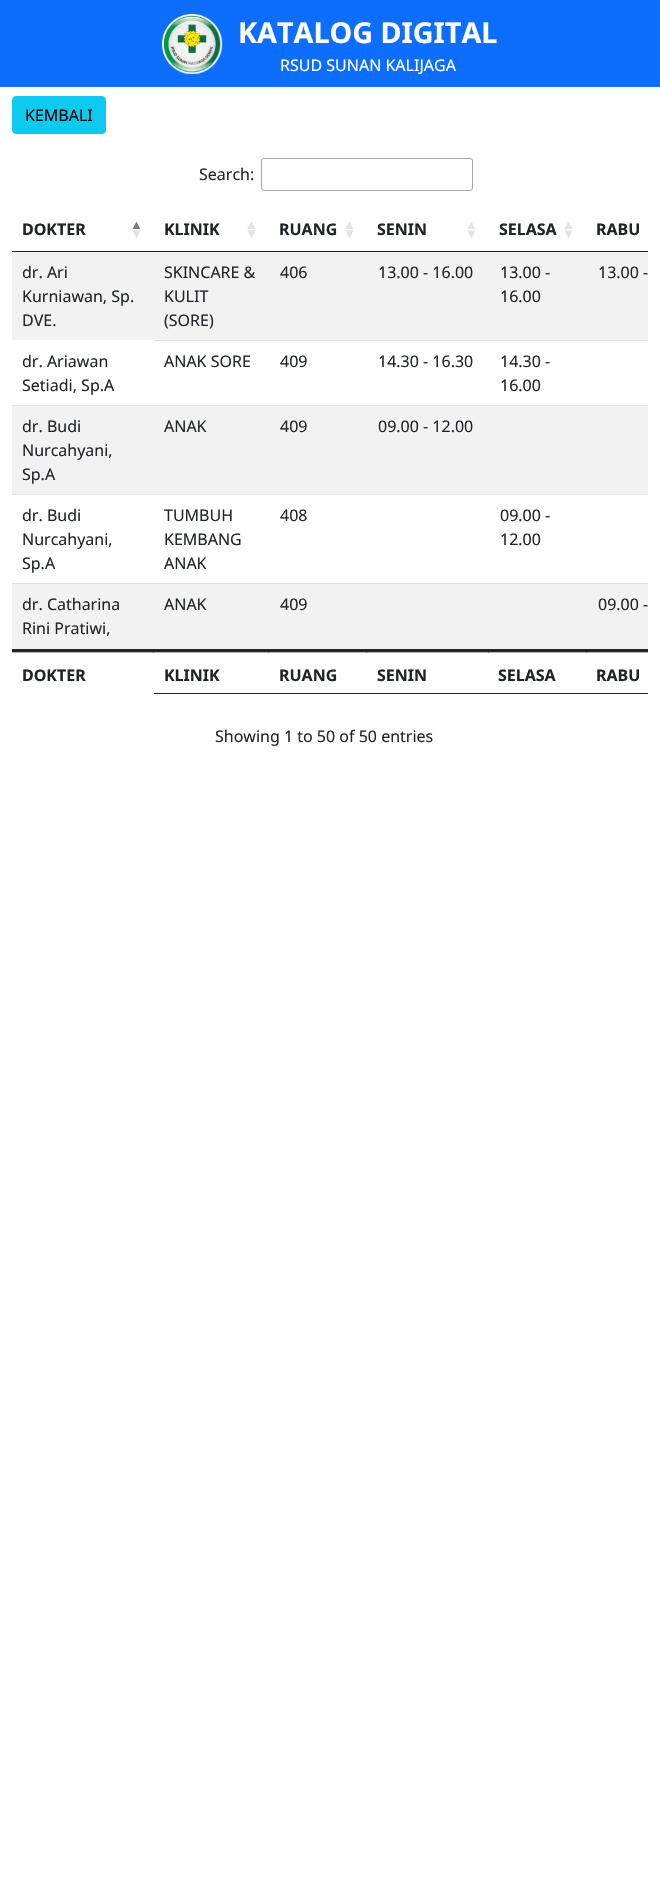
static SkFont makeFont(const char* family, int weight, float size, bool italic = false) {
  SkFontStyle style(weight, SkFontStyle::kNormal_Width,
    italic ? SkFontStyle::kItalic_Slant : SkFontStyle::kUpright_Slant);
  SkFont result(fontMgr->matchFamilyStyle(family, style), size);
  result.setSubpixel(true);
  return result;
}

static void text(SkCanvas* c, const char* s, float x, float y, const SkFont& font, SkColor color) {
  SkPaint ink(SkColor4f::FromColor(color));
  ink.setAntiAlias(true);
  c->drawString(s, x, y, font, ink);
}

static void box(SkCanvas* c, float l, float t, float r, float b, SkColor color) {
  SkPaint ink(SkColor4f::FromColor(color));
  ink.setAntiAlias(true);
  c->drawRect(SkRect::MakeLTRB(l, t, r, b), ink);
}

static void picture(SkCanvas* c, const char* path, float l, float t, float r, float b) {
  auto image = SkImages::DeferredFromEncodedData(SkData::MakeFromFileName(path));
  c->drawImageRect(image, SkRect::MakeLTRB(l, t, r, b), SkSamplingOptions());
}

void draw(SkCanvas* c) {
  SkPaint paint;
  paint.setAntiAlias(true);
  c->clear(0xffffffff);
  box(c, 12, 652, 648, 653, 0xffb3b3b3);
  box(c, 153, 652, 154, 653, 0xff7d7d7d);
  box(c, 268, 652, 269, 653, 0xff7d7d7d);
  box(c, 366, 652, 367, 653, 0xff7d7d7d);
  box(c, 488, 652, 489, 653, 0xff7d7d7d);
  box(c, 0, 0, 660, 87, 0xff0d6efd);
  picture(c, "img_01.png", 162, 14, 223, 74);
  SkFont face1 = makeFont("Noto Sans", 700, 28.75f);
  text(c, "KATALOG DIGITAL", 238, 43, face1, 0xffffffff);
  SkFont face2 = makeFont("Noto Sans", 400, 16);
  text(c, "RSUD SUNAN KALIJAGA", 280, 71, face2, 0xffffffff);
  paint.setColor(0xff0dcaf0);
  c->drawRoundRect(SkRect::MakeLTRB(12.5f, 96.5f, 105.5f, 133.5f), 3.5f, 3.5f, paint);
  paint.setStyle(SkPaint::kStroke_Style);
  paint.setStrokeWidth(1);
  c->drawRoundRect(SkRect::MakeLTRB(12.5f, 96.5f, 105.5f, 133.5f), 3.5f, 3.5f, paint);
  text(c, "KEMBALI", 25, 121, face2, 0xff000000);
  text(c, "Search:", 199, 180, face2, 0xff212529);
  paint.setColor(0xffaaaaaa);
  c->drawRoundRect(SkRect::MakeLTRB(261.5f, 158.5f, 472.5f, 190.5f), 2.5f, 2.5f, paint);
  SkFont face3 = makeFont("Noto Sans", 700, 16);
  text(c, "DOKTER", 22, 235, face3, 0xff212529);
  SkFont face4 = makeFont("Liberation Sans", 700, 13);
  text(c, "▲", 130, 229, face4, 0xff7a7c7f);
  text(c, "▼", 130, 238, face4, 0xffe3e4e4);
  text(c, "KLINIK", 164, 235, face3, 0xff212529);
  text(c, "▲", 245, 229, face4, 0xffe3e4e4);
  text(c, "▼", 245, 238, face4, 0xffe3e4e4);
  text(c, "RUANG", 279, 235, face3, 0xff212529);
  text(c, "▲", 343, 229, face4, 0xffe3e4e4);
  text(c, "▼", 343, 238, face4, 0xffe3e4e4);
  text(c, "SENIN", 377, 235, face3, 0xff212529);
  text(c, "▲", 465, 229, face4, 0xffe3e4e4);
  text(c, "▼", 465, 238, face4, 0xffe3e4e4);
  text(c, "SELASA", 499, 235, face3, 0xff212529);
  text(c, "▲", 562, 229, face4, 0xffe3e4e4);
  text(c, "▼", 562, 238, face4, 0xffe3e4e4);
  box(c, 12, 251, 648, 252, 0xff212529);
  text(c, "RABU", 596, 235, face3, 0xff212529);
  box(c, 12, 649, 648, 652, 0xff212529);
  box(c, 153, 340, 648, 341, 0xffdee2e6);
  box(c, 153, 340, 154, 341, 0xffffffff);
  box(c, 12, 252, 648, 340, 0xfff2f2f2);
  text(c, "dr. Ari", 22, 278, face2, 0xff212529);
  text(c, "Kurniawan, Sp.", 22, 302, face2, 0xff212529);
  text(c, "DVE.", 22, 326, face2, 0xff212529);
  text(c, "SKINCARE &", 164, 278, face2, 0xff212529);
  text(c, "KULIT", 164, 302, face2, 0xff212529);
  text(c, "(SORE)", 164, 326, face2, 0xff212529);
  text(c, "406", 280, 278, face2, 0xff212529);
  text(c, "13.00 - 16.00", 378, 278, face2, 0xff212529);
  text(c, "13.00 -", 500, 278, face2, 0xff212529);
  text(c, "16.00", 500, 302, face2, 0xff212529);
  text(c, "13.00 -", 598, 278, face2, 0xff212529);
  text(c, "dr. Ariawan", 22, 367, face2, 0xff212529);
  text(c, "Setiadi, Sp.A", 22, 391, face2, 0xff212529);
  text(c, "ANAK SORE", 164, 367, face2, 0xff212529);
  text(c, "409", 280, 367, face2, 0xff212529);
  text(c, "14.30 - 16.30", 378, 367, face2, 0xff212529);
  text(c, "14.30 -", 500, 367, face2, 0xff212529);
  text(c, "16.00", 500, 391, face2, 0xff212529);
  box(c, 12, 405, 648, 406, 0xffdee2e6);
  box(c, 12, 406, 648, 494, 0xfff2f2f2);
  text(c, "dr. Budi", 22, 432, face2, 0xff212529);
  text(c, "Nurcahyani,", 22, 456, face2, 0xff212529);
  text(c, "Sp.A", 22, 480, face2, 0xff212529);
  text(c, "ANAK", 164, 432, face2, 0xff212529);
  text(c, "409", 280, 432, face2, 0xff212529);
  text(c, "09.00 - 12.00", 378, 432, face2, 0xff212529);
  box(c, 12, 494, 648, 495, 0xffdee2e6);
  text(c, "dr. Budi", 22, 521, face2, 0xff212529);
  text(c, "Nurcahyani,", 22, 545, face2, 0xff212529);
  text(c, "Sp.A", 22, 569, face2, 0xff212529);
  text(c, "TUMBUH", 164, 521, face2, 0xff212529);
  text(c, "KEMBANG", 164, 545, face2, 0xff212529);
  text(c, "ANAK", 164, 569, face2, 0xff212529);
  text(c, "408", 280, 521, face2, 0xff212529);
  text(c, "09.00 -", 500, 521, face2, 0xff212529);
  text(c, "12.00", 500, 545, face2, 0xff212529);
  box(c, 12, 583, 648, 584, 0xffdee2e6);
  box(c, 12, 584, 648, 649, 0xfff2f2f2);
  text(c, "dr. Catharina", 22, 610, face2, 0xff212529);
  text(c, "Rini Pratiwi,", 22, 634, face2, 0xff212529);
  text(c, "ANAK", 164, 610, face2, 0xff212529);
  text(c, "409", 280, 610, face2, 0xff212529);
  text(c, "09.00 -", 598, 610, face2, 0xff212529);
  box(c, 153, 693, 648, 694, 0xff212529);
  box(c, 153, 693, 154, 694, 0xffffffff);
  text(c, "DOKTER", 22, 681, face3, 0xff212529);
  text(c, "KLINIK", 164, 681, face3, 0xff212529);
  text(c, "RUANG", 279, 681, face3, 0xff212529);
  text(c, "SENIN", 377, 681, face3, 0xff212529);
  text(c, "SELASA", 498, 681, face3, 0xff212529);
  box(c, 586, 652, 587, 653, 0xff7d7d7d);
  text(c, "RABU", 596, 681, face3, 0xff212529);
  text(c, "Showing 1 to 50 of 50 entries", 215, 742, face2, 0xff212529);
}
